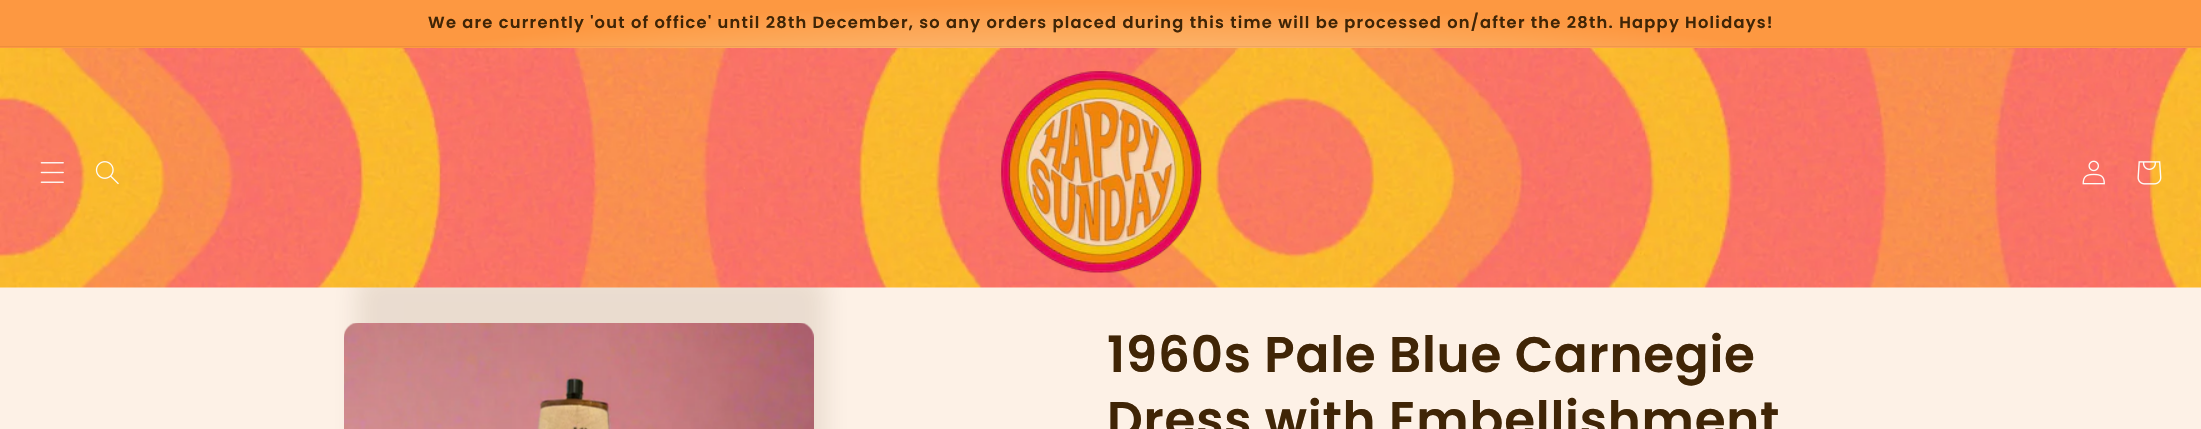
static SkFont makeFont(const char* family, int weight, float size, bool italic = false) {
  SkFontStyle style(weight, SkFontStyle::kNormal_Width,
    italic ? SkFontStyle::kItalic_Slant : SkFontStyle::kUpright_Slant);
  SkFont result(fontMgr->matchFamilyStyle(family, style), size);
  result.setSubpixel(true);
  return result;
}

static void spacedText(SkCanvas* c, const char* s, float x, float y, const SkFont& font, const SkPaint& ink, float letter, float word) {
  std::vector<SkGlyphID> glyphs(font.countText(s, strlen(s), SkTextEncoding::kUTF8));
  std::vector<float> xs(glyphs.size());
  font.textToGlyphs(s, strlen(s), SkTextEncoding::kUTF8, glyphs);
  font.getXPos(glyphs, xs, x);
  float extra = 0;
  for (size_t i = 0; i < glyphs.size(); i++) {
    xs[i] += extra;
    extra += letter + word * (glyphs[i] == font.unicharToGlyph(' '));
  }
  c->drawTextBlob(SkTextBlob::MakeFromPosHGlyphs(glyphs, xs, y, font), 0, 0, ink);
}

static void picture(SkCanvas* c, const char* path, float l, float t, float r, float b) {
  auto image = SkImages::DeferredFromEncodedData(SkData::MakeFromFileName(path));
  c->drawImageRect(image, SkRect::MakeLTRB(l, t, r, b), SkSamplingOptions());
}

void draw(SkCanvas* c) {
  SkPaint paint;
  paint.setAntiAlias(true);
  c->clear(0xfffdf1e6);
  {
    const SkColor colors[] = {0xfffae3b1, 0xfffd9841};
    const float stops[] = {0.28f, 0.7f};
    SkMatrix m = SkMatrix::Translate(1101, 215).preScale(1557, 304);
    paint.setShader(SkGradientShader::MakeRadial({0, 0}, 1, colors, stops, 2, SkTileMode::kClamp, 0, &m));
    paint.setAlpha(255);
  }
  c->drawRect(SkRect::MakeLTRB(0, 0, 2201, 48), paint);
  {
    const SkColor colors[] = {0xffebd4a3, 0xffee8f3c};
    const float stops[] = {0.28f, 0.7f};
    SkMatrix m = SkMatrix::Translate(1101, 215).preScale(1557, 304);
    paint.setShader(SkGradientShader::MakeRadial({0, 0}, 1, colors, stops, 2, SkTileMode::kClamp, 0, &m));
    paint.setAlpha(255);
  }
  c->drawRect(SkRect::MakeLTRB(0, 46, 2201, 47), paint);
  SkFont face1 = makeFont("Poppins", 600, 16.25f);
  paint.setShader(nullptr);
  paint.setColor(0xff402506);
  spacedText(c, "We are currently 'out of office' until 28th December, so any orders placed during this time will be processed on/after the 28th. Happy Holidays!", 428, 28, face1, paint, 1.25f, 0);
  paint.setColor(0x1a402506);
  paint.setMaskFilter(SkMaskFilter::MakeBlur(kNormal_SkBlurStyle, 12.5f));
  c->drawRoundRect(SkRect::MakeLTRB(356, 273, 826, 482), 15, 15, paint);
  paint.setMaskFilter(nullptr);
  picture(c, "img_01.png", 0, 48, 2201, 288);
  picture(c, "img_02.png", 40, 162, 64, 183);
  picture(c, "img_03.png", 95, 161, 119, 185);
  picture(c, "img_04.png", 1001, 71, 1202, 273);
  picture(c, "img_05.png", 2082, 160, 2105, 185);
  picture(c, "img_06.png", 2137, 161, 2162, 185);
  picture(c, "img_07.png", 344, 323, 814, 429);
  SkFont face2 = makeFont("Poppins", 600, 50);
  paint.setColor(0xff402506);
  spacedText(c, "1960s Pale Blue Carnegie", 1107, 372, face2, paint, 0.75f, 0);
  spacedText(c, "Dress with Embellishment", 1107, 437, face2, paint, 0.75f, 0);
}
